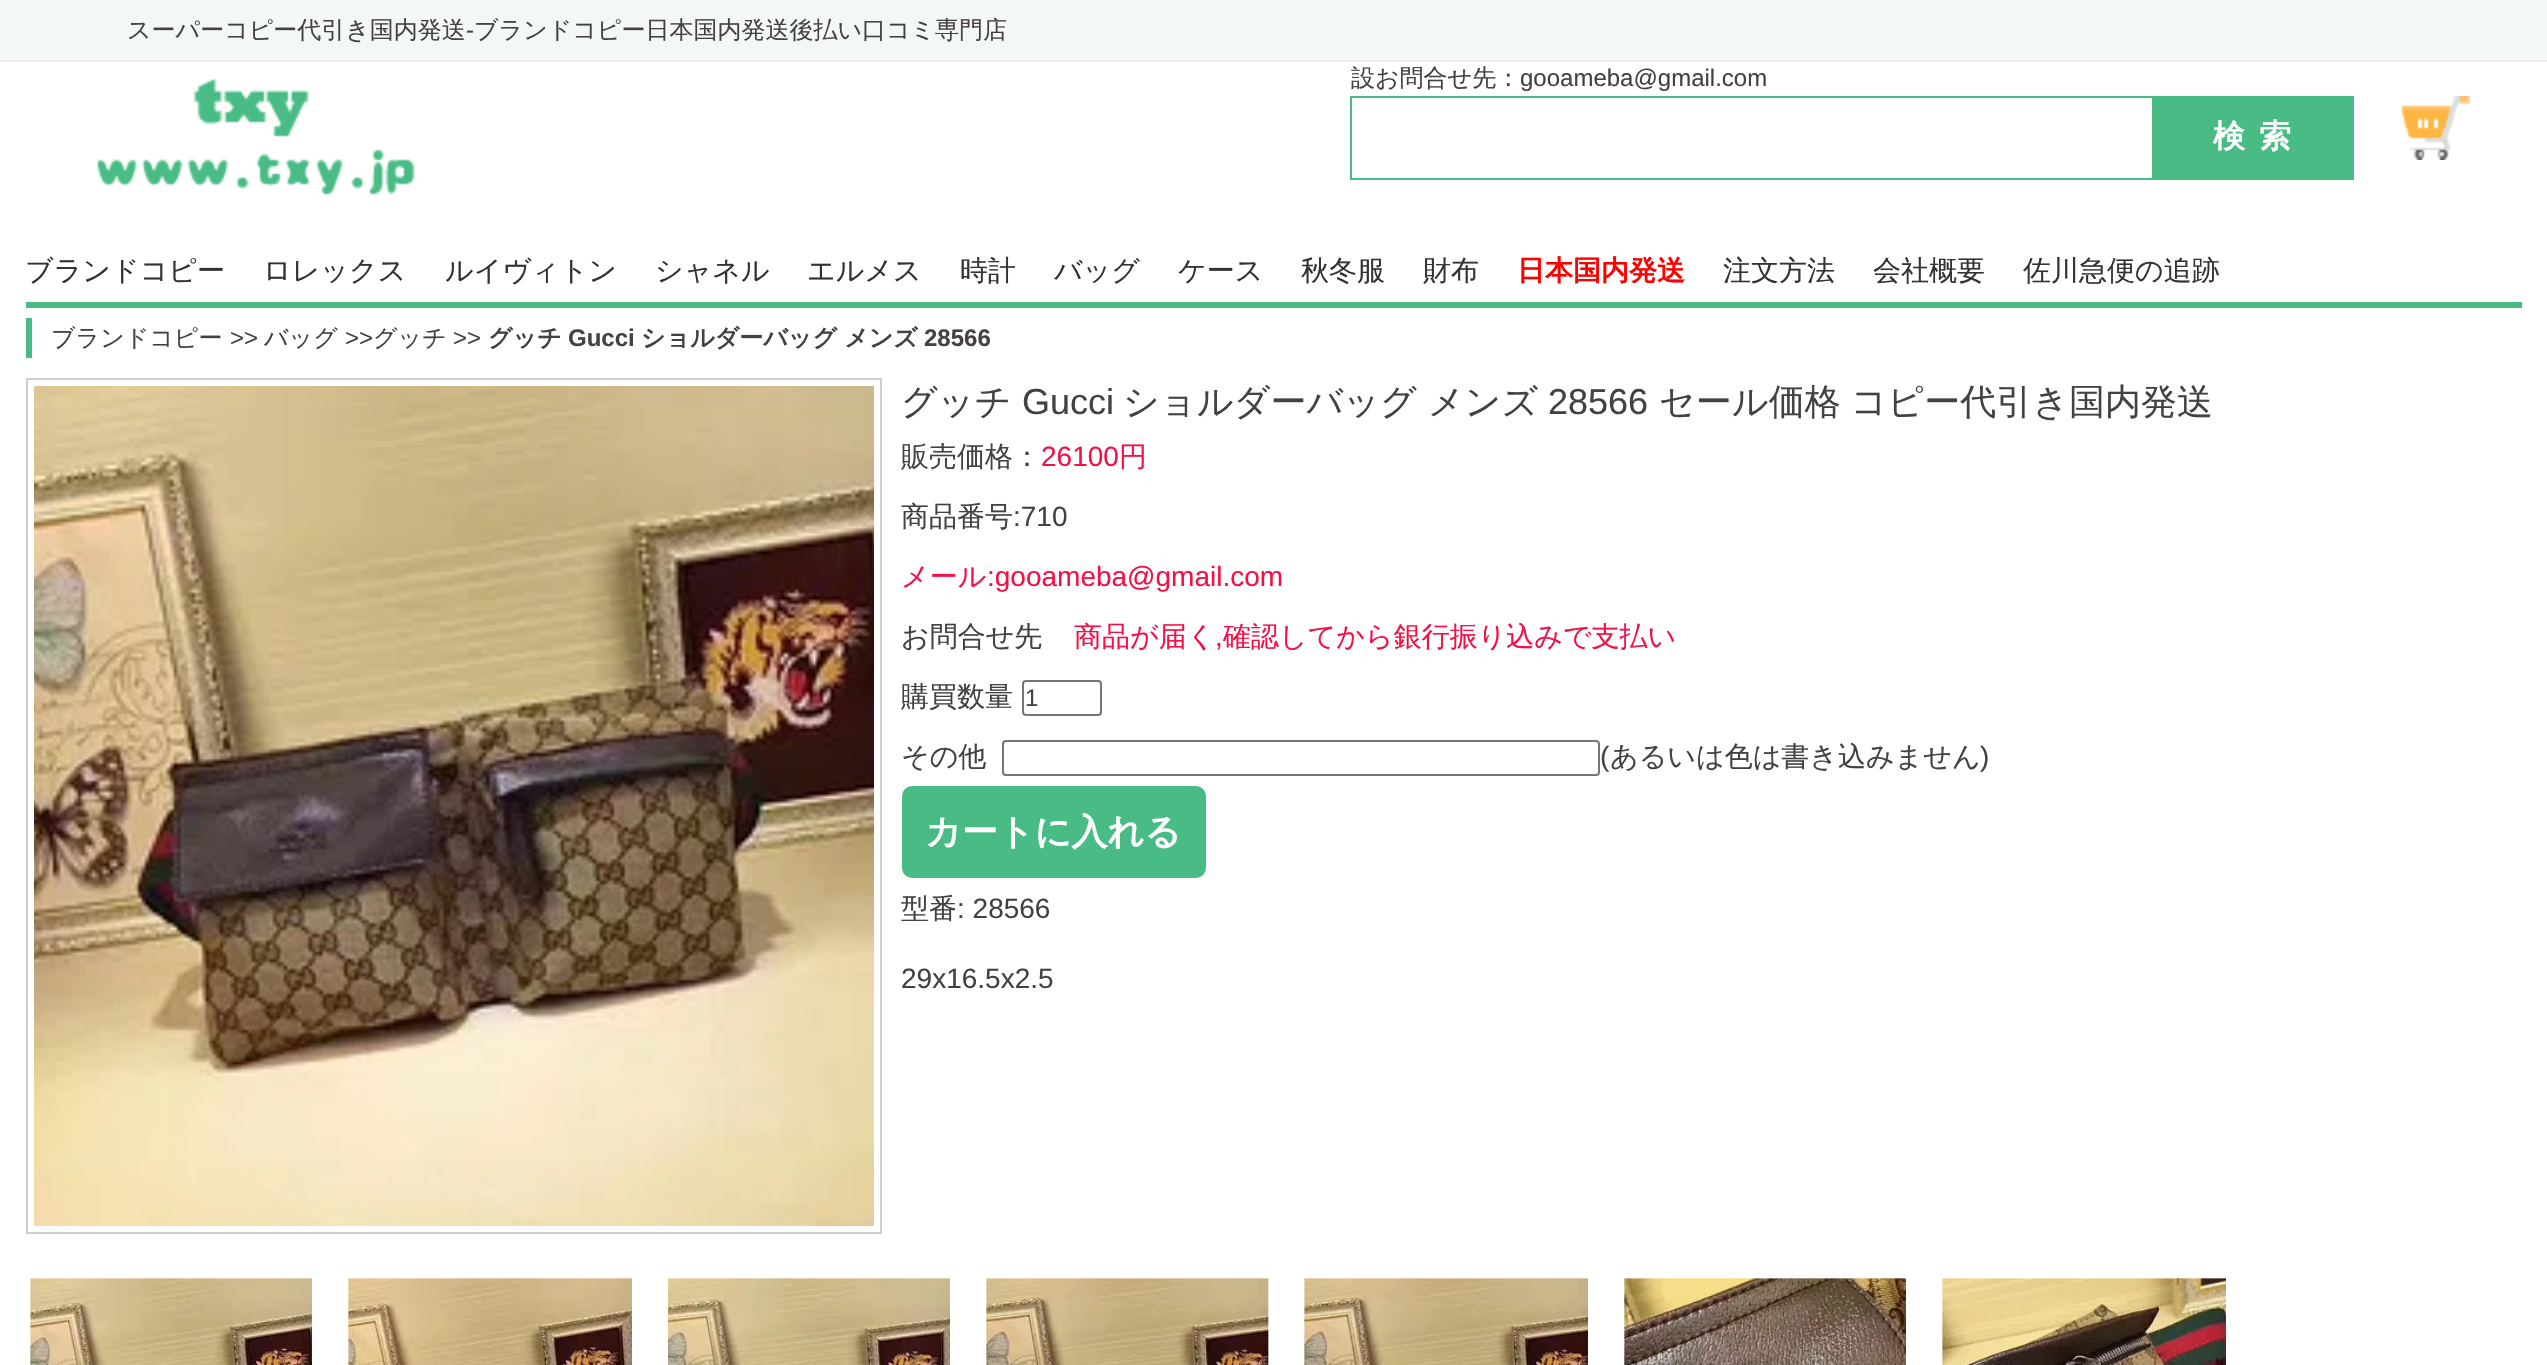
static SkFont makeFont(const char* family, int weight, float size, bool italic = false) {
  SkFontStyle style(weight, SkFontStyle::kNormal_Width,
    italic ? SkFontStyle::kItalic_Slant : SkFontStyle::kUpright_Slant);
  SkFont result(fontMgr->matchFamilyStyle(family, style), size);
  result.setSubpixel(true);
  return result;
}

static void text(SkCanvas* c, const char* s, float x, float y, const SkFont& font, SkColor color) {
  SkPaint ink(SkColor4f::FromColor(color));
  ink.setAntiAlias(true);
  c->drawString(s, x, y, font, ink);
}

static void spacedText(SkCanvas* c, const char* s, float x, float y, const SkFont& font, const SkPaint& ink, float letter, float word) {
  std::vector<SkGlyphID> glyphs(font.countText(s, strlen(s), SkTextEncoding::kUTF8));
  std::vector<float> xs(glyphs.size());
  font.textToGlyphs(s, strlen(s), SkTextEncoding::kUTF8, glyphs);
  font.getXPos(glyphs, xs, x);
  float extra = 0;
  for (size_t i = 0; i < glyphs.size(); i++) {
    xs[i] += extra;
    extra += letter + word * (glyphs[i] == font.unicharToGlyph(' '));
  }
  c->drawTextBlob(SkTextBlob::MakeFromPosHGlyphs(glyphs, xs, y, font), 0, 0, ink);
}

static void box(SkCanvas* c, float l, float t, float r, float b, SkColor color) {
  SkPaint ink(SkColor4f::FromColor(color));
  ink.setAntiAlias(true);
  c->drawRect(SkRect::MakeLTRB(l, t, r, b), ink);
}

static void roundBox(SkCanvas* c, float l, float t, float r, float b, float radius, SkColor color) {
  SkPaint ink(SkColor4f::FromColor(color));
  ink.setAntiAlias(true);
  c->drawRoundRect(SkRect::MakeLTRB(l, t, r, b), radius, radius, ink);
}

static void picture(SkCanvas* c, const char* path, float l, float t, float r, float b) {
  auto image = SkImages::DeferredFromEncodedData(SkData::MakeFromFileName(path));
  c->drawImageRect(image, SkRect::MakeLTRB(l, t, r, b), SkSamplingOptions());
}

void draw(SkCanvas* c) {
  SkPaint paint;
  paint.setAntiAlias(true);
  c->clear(0xffffffff);
  box(c, 0, 0, 2547, 60, 0xfff3f7f7);
  box(c, 0, 60, 2547, 62, 0xffeeeeee);
  SkFont face1 = makeFont("WenQuanYi Zen Hei", 500, 24);
  text(c, "スーパーコピー代引き国内発送", 127, 38, face1, 0xff454141);
  SkFont face2 = makeFont("Liberation Sans", 400, 24);
  text(c, "-", 466, 38, face2, 0xff454141);
  text(c, "ブランドコピー日本国内発送後払い口コミ専門店", 474, 38, face1, 0xff454141);
  picture(c, "img_01.png", 97, 77, 415, 195);
  text(c, "設お問合せ先：", 1351, 86, face1, 0xff454141);
  text(c, "gooameba@gmail.com", 1520, 86, face2, 0xff454141);
  paint.setStyle(SkPaint::kStroke_Style);
  paint.setStrokeWidth(2);
  paint.setColor(0xff49bc85);
  c->drawRect(SkRect::MakeLTRB(1351, 97, 2353, 179), paint);
  box(c, 2152, 98, 2352, 178, 0xff49bc85);
  SkFont face3 = makeFont("WenQuanYi Zen Hei", 700, 32);
  paint.setStyle(SkPaint::kFill_Style);
  paint.setColor(0xffffffff);
  spacedText(c, "検索", 2213, 147, face3, paint, 14, 0);
  picture(c, "img_02.png", 2401, 96, 2470, 160);
  box(c, 26, 302, 2522, 308, 0xff49bc85);
  SkFont face4 = makeFont("WenQuanYi Zen Hei", 500, 28);
  text(c, "ブランドコピー", 25, 280, face4, 0xff333333);
  text(c, "ロレックス", 263, 280, face4, 0xff333333);
  text(c, "ルイヴィトン", 445, 280, face4, 0xff333333);
  text(c, "シャネル", 655, 280, face4, 0xff333333);
  text(c, "エルメス", 807, 280, face4, 0xff333333);
  text(c, "時計", 960, 280, face4, 0xff333333);
  text(c, "バッグ", 1054, 280, face4, 0xff333333);
  text(c, "ケース", 1178, 280, face4, 0xff333333);
  text(c, "秋冬服", 1301, 280, face4, 0xff333333);
  text(c, "財布", 1423, 280, face4, 0xff333333);
  SkFont face5 = makeFont("WenQuanYi Zen Hei", 700, 28);
  text(c, "日本国内発送", 1517, 280, face5, 0xffff0000);
  text(c, "注文方法", 1723, 280, face4, 0xff333333);
  text(c, "会社概要", 1873, 280, face4, 0xff333333);
  text(c, "佐川急便の追跡", 2023, 280, face4, 0xff333333);
  box(c, 26, 318, 32, 358, 0xff49bc85);
  text(c, "ブランドコピー", 51, 346, face1, 0xff454141);
  text(c, ">>", 230, 346, face2, 0xff454141);
  text(c, "バッグ", 264, 346, face1, 0xff454141);
  text(c, ">>", 345, 346, face2, 0xff454141);
  text(c, "グッチ", 373, 346, face1, 0xff454141);
  text(c, ">>", 453, 346, face2, 0xff454141);
  SkFont face6 = makeFont("WenQuanYi Zen Hei", 700, 24);
  text(c, "グッチ", 488, 346, face6, 0xff454141);
  SkFont face7 = makeFont("Liberation Sans", 700, 24);
  text(c, "Gucci", 568, 346, face7, 0xff454141);
  text(c, "ショルダーバッグ メンズ", 641, 346, face6, 0xff454141);
  text(c, "28566", 924, 346, face7, 0xff454141);
  paint.setStyle(SkPaint::kStroke_Style);
  paint.setColor(0xffcfcfcf);
  c->drawRect(SkRect::MakeLTRB(27, 379, 881, 1233), paint);
  picture(c, "img_03.png", 34, 386, 874, 1226);
  SkFont face8 = makeFont("WenQuanYi Zen Hei", 500, 36);
  text(c, "グッチ", 901, 414, face8, 0xff454141);
  SkFont face9 = makeFont("Liberation Sans", 400, 36);
  text(c, "Gucci", 1022, 414, face9, 0xff454141);
  text(c, "ショルダーバッグ メンズ", 1123, 414, face8, 0xff454141);
  text(c, "28566", 1548, 414, face9, 0xff454141);
  paint.setStyle(SkPaint::kFill_Style);
  paint.setColor(0xff454141);
  spacedText(c, "セール価格 コピー代引き国内発送", 1659, 414, face8, paint, 0, -1);
  text(c, "販売価格：", 901, 466, face4, 0xff454141);
  SkFont face10 = makeFont("Liberation Sans", 400, 28);
  text(c, "26100", 1041, 466, face10, 0xfff60f46);
  text(c, "円", 1119, 466, face4, 0xfff60f46);
  text(c, "商品番号", 901, 526, face4, 0xff454141);
  text(c, ":710", 1013, 526, face10, 0xff454141);
  text(c, "メール", 901, 586, face4, 0xfff60f46);
  text(c, ":gooameba@gmail.com", 987, 586, face10, 0xfff60f46);
  text(c, "お問合せ先", 901, 646, face4, 0xff454141);
  text(c, "商品が届く", 1074, 646, face4, 0xfff60f46);
  text(c, ",", 1215, 646, face10, 0xfff60f46);
  text(c, "確認してから銀行振り込みで支払い", 1223, 646, face4, 0xfff60f46);
  text(c, "購買数量", 901, 706, face4, 0xff454141);
  paint.setStyle(SkPaint::kStroke_Style);
  paint.setColor(0xff767676);
  c->drawRoundRect(SkRect::MakeLTRB(1023, 681, 1101, 715), 3, 3, paint);
  text(c, "1", 1025, 706, face2, 0xff454141);
  text(c, "その他", 901, 766, face4, 0xff454141);
  c->drawRoundRect(SkRect::MakeLTRB(1003, 741, 1599, 775), 3, 3, paint);
  text(c, "(", 1600, 766, face10, 0xff454141);
  text(c, "あるいは色は書き込みません", 1610, 766, face4, 0xff454141);
  text(c, ")", 1980, 766, face10, 0xff454141);
  roundBox(c, 902, 786, 1206, 878, 10, 0xff49bc85);
  SkFont face11 = makeFont("WenQuanYi Zen Hei", 700, 36);
  text(c, "カートに入れる", 925, 844, face11, 0xffffffff);
  text(c, "型番", 901, 918, face4, 0xff454141);
  text(c, ": 28566", 957, 918, face10, 0xff454141);
  text(c, "29x16.5x2.5", 901, 988, face10, 0xff454141);
  picture(c, "img_04.png", 30, 1278, 312, 1365);
  picture(c, "img_05.png", 348, 1278, 632, 1365);
  picture(c, "img_06.png", 668, 1278, 950, 1365);
  picture(c, "img_07.png", 986, 1278, 1269, 1365);
  picture(c, "img_08.png", 1304, 1278, 1588, 1365);
  picture(c, "img_09.png", 1624, 1278, 1906, 1365);
  picture(c, "img_10.png", 1942, 1278, 2226, 1365);
}
